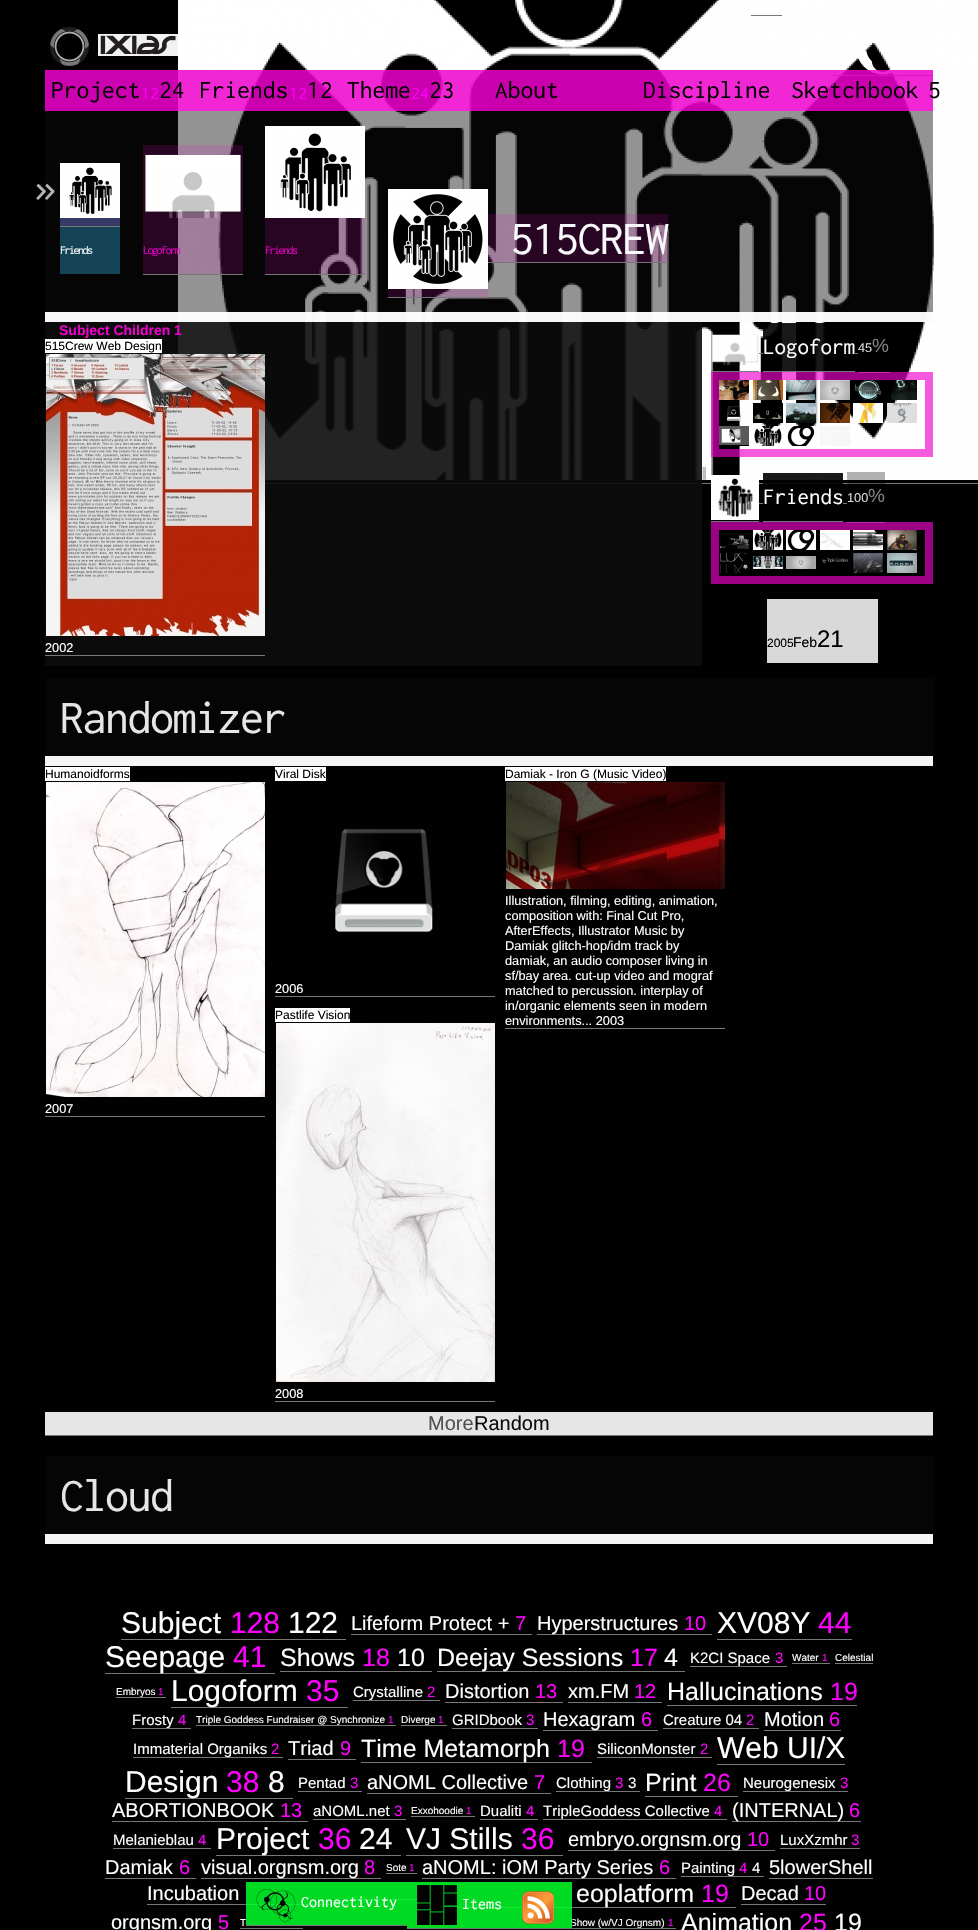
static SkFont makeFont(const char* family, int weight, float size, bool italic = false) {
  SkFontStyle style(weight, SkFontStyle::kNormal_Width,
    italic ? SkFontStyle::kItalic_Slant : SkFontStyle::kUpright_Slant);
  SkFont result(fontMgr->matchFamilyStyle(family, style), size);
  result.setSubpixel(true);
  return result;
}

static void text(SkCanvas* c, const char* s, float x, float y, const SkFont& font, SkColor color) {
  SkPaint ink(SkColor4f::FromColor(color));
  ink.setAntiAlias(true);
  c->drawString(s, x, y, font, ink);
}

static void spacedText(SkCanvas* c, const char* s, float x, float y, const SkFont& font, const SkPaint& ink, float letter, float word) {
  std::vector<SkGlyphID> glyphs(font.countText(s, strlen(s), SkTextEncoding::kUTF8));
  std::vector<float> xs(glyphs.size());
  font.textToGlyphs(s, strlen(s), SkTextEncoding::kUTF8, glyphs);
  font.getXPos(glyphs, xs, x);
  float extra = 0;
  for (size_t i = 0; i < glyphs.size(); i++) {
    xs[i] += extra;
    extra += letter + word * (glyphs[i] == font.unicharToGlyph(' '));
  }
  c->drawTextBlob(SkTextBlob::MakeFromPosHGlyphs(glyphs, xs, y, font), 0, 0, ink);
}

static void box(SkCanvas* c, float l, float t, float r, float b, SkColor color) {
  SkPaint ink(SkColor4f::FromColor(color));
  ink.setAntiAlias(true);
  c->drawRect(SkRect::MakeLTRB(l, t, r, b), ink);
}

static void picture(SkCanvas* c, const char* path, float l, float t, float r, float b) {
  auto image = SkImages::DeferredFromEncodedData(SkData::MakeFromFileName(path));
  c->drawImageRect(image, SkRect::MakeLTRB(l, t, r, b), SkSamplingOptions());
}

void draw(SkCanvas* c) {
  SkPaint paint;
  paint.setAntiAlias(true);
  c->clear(0xff010101);
  picture(c, "img_01.png", 178, 0, 978, 480);
  box(c, 265, 483, 978, 484, 0xff777777);
  box(c, 751, 15, 782, 16, 0xff777777);
  picture(c, "img_02.png", 50, 27, 89, 66);
  box(c, 98, 34, 178, 56, 0xfff2f2f2);
  picture(c, "img_03.png", 100, 35, 176, 55);
  box(c, 833, 75, 933, 76, 0xff777777);
  picture(c, "img_04.png", 858, 50, 893, 75);
  box(c, 45, 70, 193, 111, 0xd9ee00cc);
  SkFont face1 = makeFont("Inconsolata", 500, 25.5f);
  text(c, "Project", 51, 98, face1, 0xff000000);
  SkFont face2 = makeFont("Inconsolata", 500, 18);
  text(c, "12", 141, 99, face2, 0xffff00ff);
  text(c, "24", 159, 98, face1, 0xff000000);
  box(c, 193, 70, 341, 111, 0xd9ee00cc);
  text(c, "Friends", 199, 98, face1, 0xff000000);
  text(c, "12", 289, 99, face2, 0xffff00ff);
  text(c, "12", 307, 98, face1, 0xff000000);
  box(c, 341, 70, 489, 111, 0xd9ee00cc);
  text(c, "Theme", 347, 98, face1, 0xff000000);
  text(c, "24", 411, 99, face2, 0xffff00ff);
  text(c, "23", 429, 98, face1, 0xff000000);
  box(c, 489, 70, 637, 111, 0xffca00ad);
  text(c, "About", 495, 98, face1, 0xff000000);
  box(c, 637, 70, 785, 111, 0xd9ee00cc);
  text(c, "Discipline", 643, 98, face1, 0xff000000);
  box(c, 785, 70, 933, 111, 0xd9ee00cc);
  text(c, "Sketchbook", 791, 98, face1, 0xff000000);
  text(c, "5", 928, 98, face1, 0xff000000);
  box(c, 45, 111, 933, 322, 0x700b0b0b);
  box(c, 45, 312, 933, 322, 0xf5ffffff);
  box(c, 60, 227, 120, 274, 0xff144455);
  SkFont face3 = makeFont("Inconsolata", 500, 48);
  paint.setColor(0xffb4b4b4);
  spacedText(c, "»", 33, 203, face3, paint, -1.5f, 0);
  box(c, 60, 218, 120, 226, 0xff353a67);
  box(c, 60, 226, 120, 227, 0xff777777);
  picture(c, "img_05.png", 60, 163, 120, 218);
  SkFont face4 = makeFont("Inconsolata", 500, 12);
  paint.setColor(0xfff8f9fa);
  spacedText(c, "Friends", 60, 254, face4, paint, -1.5f, 0);
  box(c, 143, 145, 243, 274, 0x26ee00cc);
  box(c, 143, 274, 243, 275, 0xff777777);
  picture(c, "img_06.png", 145, 154, 241, 218);
  paint.setColor(0xffe501c4);
  spacedText(c, "Logoform", 143, 254, face4, paint, -1.5f, 0);
  box(c, 265, 218, 365, 274, 0x26ee00cc);
  box(c, 265, 274, 365, 275, 0xff777777);
  picture(c, "img_07.png", 265, 126, 365, 218);
  spacedText(c, "Friends", 265, 254, face4, paint, -1.5f, 0);
  box(c, 388, 289, 488, 297, 0x26ee00cc);
  box(c, 388, 297, 488, 298, 0xff777777);
  box(c, 488, 214, 510, 262, 0x26ee00cc);
  box(c, 488, 262, 668, 263, 0xff777777);
  box(c, 510, 214, 668, 262, 0x26ee00cc);
  picture(c, "img_08.png", 388, 189, 488, 289);
  paint.setColor(0xfff8f9fa);
  spacedText(c, "515CREW", 510, 254, face3, paint, -1.5f, 0);
  box(c, 45, 322, 702, 666, 0xe60b0b0b);
  SkFont face5 = makeFont("Liberation Sans", 700, 14);
  text(c, "Subject Children 1", 59, 335, face5, 0xffee00cc);
  box(c, 45, 655, 265, 656, 0xff777777);
  box(c, 45, 339, 162, 353, 0xffffffff);
  SkFont face6 = makeFont("Liberation Sans", 400, 12);
  text(c, "515Crew Web Design", 45, 350, face6, 0xff000000);
  picture(c, "img_09.png", 46, 354, 265, 636);
  SkFont face7 = makeFont("Liberation Sans", 400, 12.75f);
  text(c, "2002", 45, 652, face7, 0xffffffff);
  box(c, 711, 371, 759, 372, 0xff777777);
  box(c, 759, 353, 763, 354, 0xff777777);
  box(c, 763, 371, 855, 372, 0xff777777);
  box(c, 855, 353, 858, 354, 0xff777777);
  box(c, 858, 372, 890, 373, 0xff777777);
  picture(c, "img_10.png", 712, 334, 759, 365);
  box(c, 763, 323, 825, 371, 0xe6000000);
  SkFont face8 = makeFont("Inconsolata", 500, 23);
  text(c, "Logoform", 763, 354, face8, 0xffffffff);
  text(c, "45", 858, 352, face7, 0xffd9d9d9);
  SkFont face9 = makeFont("Liberation Sans", 400, 19);
  text(c, "%", 872, 352, face9, 0xff808080);
  paint.setStyle(SkPaint::kStroke_Style);
  paint.setStrokeWidth(8);
  paint.setColor(0xa6ee00cc);
  c->drawRect(SkRect::MakeLTRB(715, 376, 929, 453), paint);
  picture(c, "img_11.png", 719, 380, 749, 400);
  picture(c, "img_12.png", 753, 380, 783, 400);
  picture(c, "img_13.png", 786, 380, 816, 400);
  picture(c, "img_14.png", 820, 380, 850, 400);
  picture(c, "img_15.png", 854, 380, 882, 400);
  picture(c, "img_16.png", 887, 380, 917, 400);
  picture(c, "img_17.png", 727, 406, 741, 422);
  picture(c, "img_18.png", 753, 403, 783, 423);
  picture(c, "img_19.png", 786, 403, 816, 423);
  picture(c, "img_20.png", 820, 403, 850, 423);
  picture(c, "img_21.png", 853, 403, 883, 423);
  picture(c, "img_22.png", 887, 403, 917, 423);
  picture(c, "img_23.png", 719, 426, 749, 446);
  picture(c, "img_24.png", 754, 426, 782, 446);
  picture(c, "img_25.png", 787, 426, 816, 446);
  picture(c, "img_26.png", 820, 426, 850, 446);
  box(c, 711, 521, 759, 522, 0xff777777);
  box(c, 759, 503, 763, 504, 0xff777777);
  box(c, 763, 521, 843, 522, 0xff777777);
  box(c, 843, 503, 847, 504, 0xff777777);
  box(c, 847, 522, 885, 523, 0xff777777);
  picture(c, "img_27.png", 711, 475, 759, 520);
  box(c, 763, 473, 843, 484, 0xe6000000);
  text(c, "Friends", 763, 504, face8, 0xffffffff);
  box(c, 847, 472, 885, 484, 0x4d000000);
  text(c, "100", 847, 502, face7, 0xffd9d9d9);
  text(c, "%", 868, 502, face9, 0xff808080);
  c->drawRect(SkRect::MakeLTRB(715, 526, 929, 580), paint);
  picture(c, "img_28.png", 719, 535, 749, 549);
  picture(c, "img_29.png", 753, 530, 783, 550);
  picture(c, "img_30.png", 786, 530, 816, 550);
  picture(c, "img_31.png", 820, 530, 850, 550);
  picture(c, "img_32.png", 853, 530, 883, 550);
  picture(c, "img_33.png", 887, 530, 917, 550);
  picture(c, "img_34.png", 720, 553, 748, 573);
  picture(c, "img_35.png", 753, 556, 783, 569);
  picture(c, "img_36.png", 786, 556, 816, 569);
  picture(c, "img_37.png", 821, 558, 850, 568);
  picture(c, "img_38.png", 853, 553, 883, 573);
  picture(c, "img_39.png", 887, 553, 917, 573);
  box(c, 767, 599, 878, 663, 0xffd9d9d9);
  text(c, "2005", 767, 647, face6, 0xff000000);
  SkFont face10 = makeFont("Liberation Sans", 400, 14);
  text(c, "Feb", 793, 647, face10, 0xff000000);
  SkFont face11 = makeFont("Liberation Sans", 400, 24);
  text(c, "21", 817, 647, face11, 0xff000000);
  box(c, 45, 678, 933, 756, 0xff050505);
  box(c, 45, 756, 933, 766, 0xfff5f5f5);
  paint.setStyle(SkPaint::kFill_Style);
  paint.setColor(0xffe6e6e6);
  spacedText(c, "Randomizer", 60, 733, face3, paint, -1.5f, 0);
  box(c, 45, 1116, 265, 1117, 0xff777777);
  box(c, 45, 767, 130, 781, 0xffffffff);
  text(c, "Humanoidforms", 45, 778, face6, 0xff000000);
  picture(c, "img_40.png", 46, 782, 265, 1097);
  text(c, "2007", 45, 1113, face7, 0xffffffff);
  box(c, 275, 996, 495, 997, 0xff777777);
  box(c, 275, 767, 326, 781, 0xffffffff);
  text(c, "Viral Disk", 275, 778, face6, 0xff000000);
  picture(c, "img_41.png", 335, 829, 433, 932);
  text(c, "2006", 275, 993, face7, 0xffffffff);
  box(c, 505, 1028, 725, 1029, 0xff777777);
  box(c, 505, 767, 666, 781, 0xffffffff);
  text(c, "Damiak - Iron G (Music Video)", 505, 778, face6, 0xff000000);
  picture(c, "img_42.png", 506, 782, 725, 889);
  text(c, "Illustration, filming, editing, animation,", 505, 905, face7, 0xffffffff);
  text(c, "composition with: Final Cut Pro,", 505, 920, face7, 0xffffffff);
  text(c, "AfterEffects, Illustrator Music by", 505, 935, face7, 0xffffffff);
  text(c, "Damiak glitch-hop/idm track by", 505, 950, face7, 0xffffffff);
  text(c, "damiak, an audio composer living in", 505, 965, face7, 0xffffffff);
  text(c, "sf/bay area. cut-up video and mograf", 505, 980, face7, 0xffffffff);
  text(c, "matched to percussion. interplay of", 505, 995, face7, 0xffffffff);
  text(c, "in/organic elements seen in modern", 505, 1010, face7, 0xffffffff);
  text(c, "environments... 2003", 505, 1025, face7, 0xffffffff);
  box(c, 275, 1401, 495, 1402, 0xff777777);
  box(c, 275, 1008, 350, 1022, 0xffffffff);
  text(c, "Pastlife Vision", 275, 1019, face6, 0xff000000);
  picture(c, "img_43.png", 276, 1023, 495, 1382);
  text(c, "2008", 275, 1398, face7, 0xffffffff);
  box(c, 45, 1412, 933, 1435, 0xffe6e6e6);
  box(c, 45, 1435, 933, 1436, 0xff777777);
  SkFont face12 = makeFont("Liberation Sans", 400, 20);
  text(c, "More", 428, 1430, face12, 0xff515151);
  text(c, "Random", 474, 1430, face12, 0xff0c0c0c);
  box(c, 45, 1456, 933, 1534, 0xff050505);
  box(c, 45, 1534, 933, 1544, 0xfff5f5f5);
  spacedText(c, "Cloud", 60, 1511, face3, paint, -1.5f, 0);
  box(c, 121, 1639, 346, 1640, 0xff777777);
  SkFont face13 = makeFont("Liberation Sans", 400, 30);
  text(c, "Subject", 121, 1633, face13, 0xffffffff);
  text(c, "128", 230, 1633, face13, 0xffff00ff);
  text(c, "122", 288, 1633, face13, 0xffffffff);
  text(c, "Lifeform Protect +", 351, 1630, face12, 0xffffffff);
  box(c, 351, 1634, 532, 1635, 0xff777777);
  text(c, "7", 515, 1630, face12, 0xffff00ff);
  box(c, 537, 1634, 712, 1635, 0xff777777);
  text(c, "Hyperstructures", 537, 1630, face12, 0xffffffff);
  text(c, "10", 684, 1630, face12, 0xffff00ff);
  text(c, "XV08Y", 717, 1633, face13, 0xffffffff);
  box(c, 717, 1639, 852, 1640, 0xff777777);
  text(c, "44", 818, 1633, face13, 0xffff00ff);
  box(c, 105, 1673, 275, 1674, 0xff777777);
  text(c, "Seepage", 105, 1667, face13, 0xffffffff);
  text(c, "41", 233, 1667, face13, 0xffff00ff);
  SkFont face14 = makeFont("Liberation Sans", 400, 25);
  text(c, "Shows", 280, 1666, face14, 0xffffffff);
  text(c, "18", 362, 1666, face14, 0xffff00ff);
  box(c, 280, 1671, 432, 1672, 0xff777777);
  text(c, "10", 397, 1666, face14, 0xffffffff);
  box(c, 437, 1671, 685, 1672, 0xff777777);
  text(c, "Deejay Sessions", 437, 1666, face14, 0xffffffff);
  text(c, "17", 630, 1666, face14, 0xffff00ff);
  text(c, "4", 664, 1666, face14, 0xffffffff);
  box(c, 690, 1666, 787, 1667, 0xff777777);
  SkFont face15 = makeFont("Liberation Sans", 400, 15);
  text(c, "K2CI Space", 690, 1663, face15, 0xffffffff);
  text(c, "3", 775, 1663, face15, 0xffff00ff);
  SkFont face16 = makeFont("Liberation Sans", 400, 10);
  text(c, "Water", 792, 1661, face16, 0xffffffff);
  box(c, 792, 1663, 830, 1664, 0xff777777);
  text(c, "1", 822, 1661, face16, 0xffff00ff);
  text(c, "Celestial", 835, 1661, face16, 0xffffffff);
  box(c, 835, 1663, 873, 1664, 0xff777777);
  box(c, 116, 1697, 166, 1698, 0xff777777);
  text(c, "Embryos", 116, 1695, face16, 0xffffffff);
  text(c, "1", 158, 1695, face16, 0xffff00ff);
  box(c, 171, 1707, 348, 1708, 0xff777777);
  text(c, "Logoform", 171, 1701, face13, 0xffffffff);
  text(c, "35", 306, 1701, face13, 0xffff00ff);
  box(c, 353, 1700, 440, 1701, 0xff777777);
  text(c, "Crystalline", 353, 1697, face15, 0xffffffff);
  text(c, "2", 427, 1697, face15, 0xffff00ff);
  text(c, "Distortion", 445, 1698, face12, 0xffffffff);
  text(c, "13", 535, 1698, face12, 0xffff00ff);
  box(c, 445, 1702, 563, 1703, 0xff777777);
  text(c, "xm.FM", 568, 1698, face12, 0xffffffff);
  box(c, 568, 1702, 662, 1703, 0xff777777);
  text(c, "12", 634, 1698, face12, 0xffff00ff);
  text(c, "Hallucinations", 667, 1700, face14, 0xffffffff);
  text(c, "19", 830, 1700, face14, 0xffff00ff);
  box(c, 667, 1705, 857, 1706, 0xff777777);
  box(c, 132, 1728, 191, 1729, 0xff777777);
  text(c, "Frosty", 132, 1725, face15, 0xffffffff);
  text(c, "4", 178, 1725, face15, 0xffff00ff);
  box(c, 196, 1725, 396, 1726, 0xff777777);
  text(c, "Triple Goddess Fundraiser @ Synchronize", 196, 1723, face16, 0xffffffff);
  text(c, "1", 388, 1723, face16, 0xffff00ff);
  box(c, 401, 1725, 447, 1726, 0xff777777);
  text(c, "Diverge", 401, 1723, face16, 0xffffffff);
  text(c, "1", 438, 1723, face16, 0xffff00ff);
  text(c, "GRIDbook", 452, 1725, face15, 0xffffffff);
  box(c, 452, 1728, 538, 1729, 0xff777777);
  text(c, "3", 526, 1725, face15, 0xffff00ff);
  box(c, 543, 1730, 658, 1731, 0xff777777);
  text(c, "Hexagram", 543, 1726, face12, 0xffffffff);
  text(c, "6", 641, 1726, face12, 0xffff00ff);
  text(c, "Creature 04", 663, 1725, face15, 0xffffffff);
  box(c, 663, 1728, 759, 1729, 0xff777777);
  text(c, "2", 746, 1725, face15, 0xffff00ff);
  text(c, "Motion", 764, 1726, face12, 0xffffffff);
  text(c, "6", 829, 1726, face12, 0xffff00ff);
  box(c, 764, 1730, 841, 1731, 0xff777777);
  box(c, 133, 1757, 283, 1758, 0xff777777);
  text(c, "Immaterial Organiks", 133, 1754, face15, 0xffffffff);
  text(c, "2", 271, 1754, face15, 0xffff00ff);
  text(c, "Triad", 288, 1755, face12, 0xffffffff);
  text(c, "9", 340, 1755, face12, 0xffff00ff);
  box(c, 288, 1759, 356, 1760, 0xff777777);
  box(c, 361, 1762, 592, 1763, 0xff777777);
  text(c, "Time Metamorph", 361, 1757, face14, 0xffffffff);
  text(c, "19", 557, 1757, face14, 0xffff00ff);
  text(c, "SiliconMonster", 597, 1754, face15, 0xffffffff);
  box(c, 597, 1757, 712, 1758, 0xff777777);
  text(c, "2", 700, 1754, face15, 0xffff00ff);
  text(c, "Web UI/X", 717, 1758, face13, 0xffffffff);
  box(c, 717, 1764, 845, 1765, 0xff777777);
  box(c, 125, 1798, 293, 1799, 0xff777777);
  text(c, "Design", 125, 1792, face13, 0xffffffff);
  text(c, "38", 226, 1792, face13, 0xffff00ff);
  text(c, "8", 268, 1792, face13, 0xffffffff);
  text(c, "Pentad", 298, 1788, face15, 0xffffffff);
  box(c, 298, 1791, 362, 1792, 0xff777777);
  text(c, "3", 350, 1788, face15, 0xffff00ff);
  text(c, "aNOML Collective", 367, 1789, face12, 0xffffffff);
  box(c, 367, 1793, 551, 1794, 0xff777777);
  text(c, "7", 534, 1789, face12, 0xffff00ff);
  box(c, 556, 1791, 640, 1792, 0xff777777);
  text(c, "Clothing", 556, 1788, face15, 0xffffffff);
  text(c, "3", 615, 1788, face15, 0xffff00ff);
  text(c, "3", 628, 1788, face15, 0xffffffff);
  text(c, "Print", 645, 1791, face14, 0xffffffff);
  text(c, "26", 703, 1791, face14, 0xffff00ff);
  box(c, 645, 1796, 738, 1797, 0xff777777);
  box(c, 743, 1791, 848, 1792, 0xff777777);
  text(c, "Neurogenesix", 743, 1788, face15, 0xffffffff);
  text(c, "3", 840, 1788, face15, 0xffff00ff);
  text(c, "ABORTIONBOOK", 112, 1817, face12, 0xffffffff);
  box(c, 112, 1821, 308, 1822, 0xff777777);
  text(c, "13", 280, 1817, face12, 0xffff00ff);
  text(c, "aNOML.net", 313, 1816, face15, 0xffffffff);
  box(c, 313, 1819, 406, 1820, 0xff777777);
  text(c, "3", 394, 1816, face15, 0xffff00ff);
  text(c, "Exxohoodie", 411, 1814, face16, 0xffffffff);
  box(c, 411, 1816, 475, 1817, 0xff777777);
  text(c, "1", 466, 1814, face16, 0xffff00ff);
  text(c, "Dualiti", 480, 1816, face15, 0xffffffff);
  box(c, 480, 1819, 538, 1820, 0xff777777);
  text(c, "4", 526, 1816, face15, 0xffff00ff);
  box(c, 543, 1819, 727, 1820, 0xff777777);
  text(c, "TripleGoddess Collective", 543, 1816, face15, 0xffffffff);
  text(c, "4", 714, 1816, face15, 0xffff00ff);
  box(c, 732, 1821, 861, 1822, 0xff777777);
  text(c, "(INTERNAL)", 732, 1817, face12, 0xffffffff);
  text(c, "6", 849, 1817, face12, 0xffff00ff);
  text(c, "Melanieblau", 113, 1845, face15, 0xffffffff);
  box(c, 113, 1848, 211, 1849, 0xff777777);
  text(c, "4", 198, 1845, face15, 0xffff00ff);
  box(c, 216, 1855, 401, 1856, 0xff777777);
  text(c, "Project", 216, 1849, face13, 0xffffffff);
  text(c, "36", 318, 1849, face13, 0xffff00ff);
  text(c, "24", 359, 1849, face13, 0xffffffff);
  text(c, "VJ Stills", 406, 1849, face13, 0xffffffff);
  text(c, "36", 521, 1849, face13, 0xffff00ff);
  box(c, 406, 1855, 563, 1856, 0xff777777);
  box(c, 568, 1850, 775, 1851, 0xff777777);
  text(c, "embryo.orgnsm.org", 568, 1846, face12, 0xffffffff);
  text(c, "10", 747, 1846, face12, 0xffff00ff);
  text(c, "LuxXzmhr", 780, 1845, face15, 0xffffffff);
  box(c, 780, 1848, 860, 1849, 0xff777777);
  text(c, "3", 851, 1845, face15, 0xffff00ff);
  text(c, "Damiak", 105, 1874, face12, 0xffffffff);
  text(c, "6", 179, 1874, face12, 0xffff00ff);
  box(c, 105, 1878, 196, 1879, 0xff777777);
  box(c, 201, 1878, 381, 1879, 0xff777777);
  text(c, "visual.orgnsm.org", 201, 1874, face12, 0xffffffff);
  text(c, "8", 364, 1874, face12, 0xffff00ff);
  text(c, "Sote", 386, 1871, face16, 0xffffffff);
  box(c, 386, 1873, 417, 1874, 0xff777777);
  text(c, "1", 409, 1871, face16, 0xffff00ff);
  box(c, 422, 1878, 676, 1879, 0xff777777);
  text(c, "aNOML: iOM Party Series", 422, 1874, face12, 0xffffffff);
  text(c, "6", 659, 1874, face12, 0xffff00ff);
  box(c, 681, 1876, 764, 1877, 0xff777777);
  text(c, "Painting", 681, 1873, face15, 0xffffffff);
  text(c, "4", 739, 1873, face15, 0xffff00ff);
  text(c, "4", 752, 1873, face15, 0xffffffff);
  text(c, "5lowerShell", 769, 1874, face12, 0xffffffff);
  box(c, 769, 1878, 873, 1879, 0xff777777);
  text(c, "Incubation", 147, 1900, face12, 0xffffffff);
  box(c, 147, 1904, 349, 1905, 0xff777777);
  box(c, 354, 1899, 432, 1900, 0xff777777);
  box(c, 553, 1907, 736, 1908, 0xff777777);
  text(c, "eoplatform", 576, 1902, face14, 0xffffffff);
  text(c, "19", 701, 1902, face14, 0xffff00ff);
  text(c, "Decad", 741, 1900, face12, 0xffffffff);
  text(c, "10", 804, 1900, face12, 0xffff00ff);
  box(c, 741, 1904, 826, 1905, 0xff777777);
  box(c, 456, 1907, 528, 1908, 0xff777777);
  text(c, "orgnsm.org", 111, 1929, face12, 0xffffffff);
  text(c, "5", 218, 1929, face12, 0xffff00ff);
  text(c, "T", 240, 1926, face16, 0xffffffff);
  box(c, 240, 1928, 303, 1929, 0xff777777);
  box(c, 572, 1928, 676, 1929, 0xff777777);
  text(c, "Show (w/VJ Orgnsm)", 570, 1926, face16, 0xffffffff);
  text(c, "1", 668, 1926, face16, 0xffff00ff);
  text(c, "Animation", 681, 1931, face14, 0xffffffff);
  text(c, "25", 799, 1931, face14, 0xffff00ff);
  text(c, "19", 834, 1931, face14, 0xffffffff);
  paint.setStyle(SkPaint::kStroke_Style);
  paint.setStrokeWidth(1);
  paint.setColor(0x40000000);
  c->drawRect(SkRect::MakeLTRB(245.5f, 1881.5f, 572.5f, 1929.5f), paint);
  box(c, 246, 1882, 407, 1925, 0xd900ff28);
  box(c, 246, 1925, 407, 1926, 0xff777777);
  picture(c, "img_44.png", 256, 1889, 296, 1922);
  SkFont face17 = makeFont("Inconsolata", 500, 16);
  text(c, "Connectivity", 301, 1907, face17, 0xffffffff);
  box(c, 407, 1882, 512, 1928, 0xd900ff28);
  box(c, 407, 1928, 572, 1929, 0xff777777);
  picture(c, "img_45.png", 417, 1885, 457, 1925);
  text(c, "Items", 462, 1909, face17, 0xffffffff);
  box(c, 512, 1882, 572, 1928, 0xd900ff28);
  picture(c, "img_46.png", 522, 1891, 554, 1924);
}
